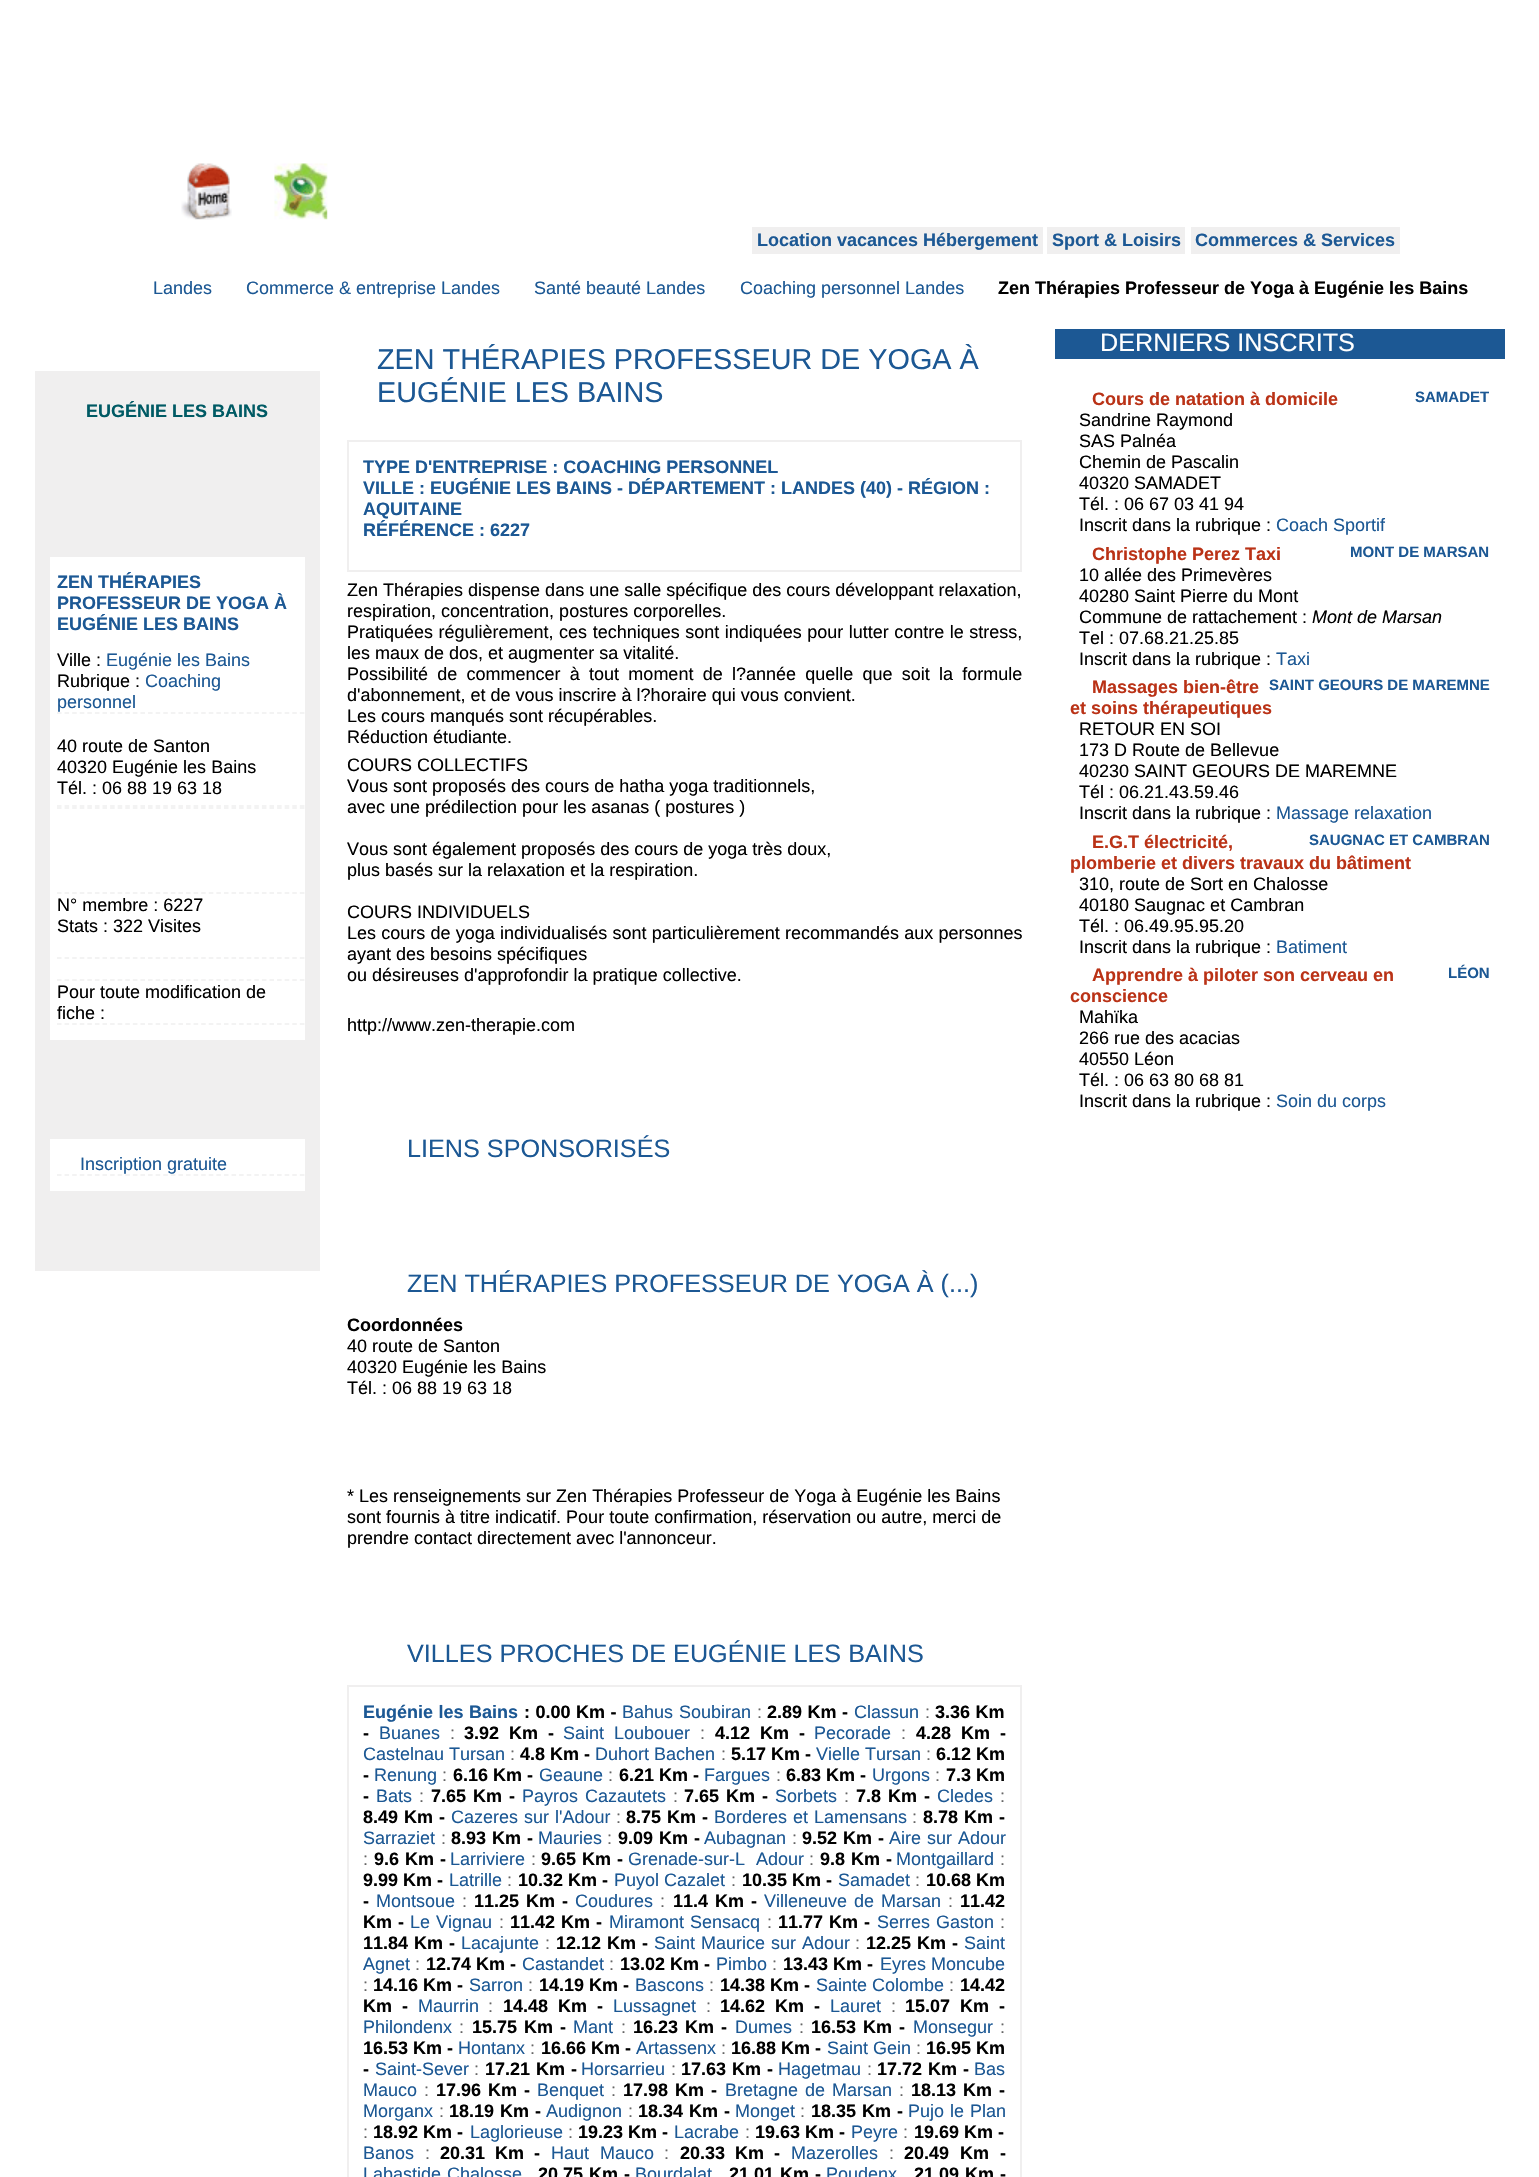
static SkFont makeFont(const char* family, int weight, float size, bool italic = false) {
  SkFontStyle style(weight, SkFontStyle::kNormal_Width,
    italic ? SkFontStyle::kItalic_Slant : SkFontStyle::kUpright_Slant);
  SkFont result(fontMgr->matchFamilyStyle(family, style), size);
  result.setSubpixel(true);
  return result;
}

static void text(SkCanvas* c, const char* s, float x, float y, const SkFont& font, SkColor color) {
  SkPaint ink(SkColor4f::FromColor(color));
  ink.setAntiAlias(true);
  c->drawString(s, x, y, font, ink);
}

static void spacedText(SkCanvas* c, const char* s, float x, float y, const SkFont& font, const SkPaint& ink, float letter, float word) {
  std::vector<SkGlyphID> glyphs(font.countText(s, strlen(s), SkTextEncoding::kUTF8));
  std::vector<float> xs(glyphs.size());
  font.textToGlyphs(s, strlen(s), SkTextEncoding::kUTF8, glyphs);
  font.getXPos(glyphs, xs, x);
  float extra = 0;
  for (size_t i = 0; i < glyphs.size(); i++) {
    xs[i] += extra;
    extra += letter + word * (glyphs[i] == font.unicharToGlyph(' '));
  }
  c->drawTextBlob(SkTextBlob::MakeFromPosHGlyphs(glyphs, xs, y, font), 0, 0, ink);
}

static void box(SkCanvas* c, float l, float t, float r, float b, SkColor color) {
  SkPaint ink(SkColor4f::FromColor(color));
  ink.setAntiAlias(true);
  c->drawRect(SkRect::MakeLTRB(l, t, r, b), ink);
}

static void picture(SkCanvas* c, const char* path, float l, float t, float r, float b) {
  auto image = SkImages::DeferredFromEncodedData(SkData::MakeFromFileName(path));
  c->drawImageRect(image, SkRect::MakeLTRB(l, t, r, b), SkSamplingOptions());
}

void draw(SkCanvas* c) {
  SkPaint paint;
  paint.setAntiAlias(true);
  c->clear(0xffffffff);
  picture(c, "img_01.png", 181, 163, 232, 220);
  picture(c, "img_02.png", 274, 163, 328, 220);
  box(c, 752, 227, 1043, 254, 0xfff0efef);
  SkFont face1 = makeFont("Liberation Sans", 700, 18);
  text(c, "Location vacances Hébergement", 757, 246, face1, 0xff1c5894);
  box(c, 1047, 227, 1185, 254, 0xfff0efef);
  text(c, "Sport & Loisirs", 1052, 246, face1, 0xff1c5894);
  box(c, 1191, 227, 1400, 254, 0xfff0efef);
  text(c, "Commerces & Services", 1195, 246, face1, 0xff1c5894);
  SkFont face2 = makeFont("Liberation Sans", 400, 18);
  text(c, "Landes", 153, 294, face2, 0xff1c5894);
  text(c, "Commerce & entreprise Landes", 246, 294, face2, 0xff1c5894);
  text(c, "Santé beauté Landes", 534, 294, face2, 0xff1c5894);
  text(c, "Coaching personnel Landes", 740, 294, face2, 0xff1c5894);
  text(c, "Zen Thérapies Professeur de Yoga à Eugénie les Bains", 998, 294, face1, 0xff000000);
  box(c, 35, 371, 320, 1271, 0xfff0efef);
  text(c, "EUGÉNIE LES BAINS", 86, 417, face1, 0xff005a64);
  box(c, 50, 557, 305, 1040, 0xffffffff);
  text(c, "ZEN THÉRAPIES", 57, 588, face1, 0xff1c5894);
  text(c, "PROFESSEUR DE YOGA À", 57, 609, face1, 0xff1c5894);
  text(c, "EUGÉNIE LES BAINS", 57, 630, face1, 0xff1c5894);
  paint.setStyle(SkPaint::kStroke_Style);
  paint.setStrokeWidth(1.5f);
  paint.setColor(0xfff0efef);
  paint.setPathEffect(SkDashPathEffect::Make({{4.5f, 3.09f}}, 0));
  c->drawPath(SkPathBuilder().moveTo(57, 713).lineTo(304.5f, 713).detach(), paint);
  paint.setPathEffect(nullptr);
  text(c, "Ville :", 57, 666, face2, 0xff000000);
  text(c, "Eugénie les Bains", 106, 666, face2, 0xff1c5894);
  text(c, "Rubrique :", 57, 687, face2, 0xff000000);
  text(c, "Coaching", 145, 687, face2, 0xff1c5894);
  text(c, "personnel", 57, 708, face2, 0xff1c5894);
  paint.setPathEffect(SkDashPathEffect::Make({{4.5f, 3.09f}}, 0));
  c->drawPath(SkPathBuilder().moveTo(57, 806).lineTo(304.5f, 806).detach(), paint);
  paint.setPathEffect(nullptr);
  text(c, "40 route de Santon", 57, 752, face2, 0xff000000);
  text(c, "40320 Eugénie les Bains", 57, 773, face2, 0xff000000);
  text(c, "Tél. : 06 88 19 63 18", 57, 794, face2, 0xff000000);
  paint.setPathEffect(SkDashPathEffect::Make({{4.5f, 3.09f}}, 0));
  c->drawPath(SkPathBuilder().moveTo(57, 808).lineTo(304.5f, 808).detach(), paint);
  paint.setPathEffect(nullptr);
  paint.setPathEffect(SkDashPathEffect::Make({{4.5f, 3.09f}}, 0));
  c->drawPath(SkPathBuilder().moveTo(57, 893).lineTo(304.5f, 893).detach(), paint);
  paint.setPathEffect(nullptr);
  paint.setPathEffect(SkDashPathEffect::Make({{4.5f, 3.09f}}, 0));
  c->drawPath(SkPathBuilder().moveTo(57, 958).lineTo(304.5f, 958).detach(), paint);
  paint.setPathEffect(nullptr);
  text(c, "N° membre : 6227", 57, 911, face2, 0xff000000);
  text(c, "Stats : 322 Visites", 57, 932, face2, 0xff000000);
  paint.setPathEffect(SkDashPathEffect::Make({{4.5f, 3.09f}}, 0));
  c->drawPath(SkPathBuilder().moveTo(57, 980).lineTo(304.5f, 980).detach(), paint);
  paint.setPathEffect(nullptr);
  paint.setPathEffect(SkDashPathEffect::Make({{4.5f, 3.09f}}, 0));
  c->drawPath(SkPathBuilder().moveTo(57, 1024).lineTo(304.5f, 1024).detach(), paint);
  paint.setPathEffect(nullptr);
  text(c, "Pour toute modification de", 57, 998, face2, 0xff000000);
  text(c, "fiche :", 57, 1019, face2, 0xff000000);
  box(c, 50, 1139, 305, 1191, 0xffffffff);
  paint.setPathEffect(SkDashPathEffect::Make({{4.5f, 3.09f}}, 0));
  c->drawPath(SkPathBuilder().moveTo(57, 1175).lineTo(304.5f, 1175).detach(), paint);
  paint.setPathEffect(nullptr);
  text(c, "Inscription gratuite", 80, 1170, face2, 0xff1c5894);
  SkFont face3 = makeFont("Liberation Sans", 400, 28.8f);
  text(c, "ZEN THÉRAPIES PROFESSEUR DE YOGA À", 377, 369, face3, 0xff1c5894);
  text(c, "EUGÉNIE LES BAINS", 377, 402, face3, 0xff1c5894);
  paint.setStrokeWidth(2);
  c->drawRect(SkRect::MakeLTRB(348, 441, 1021, 571), paint);
  text(c, "TYPE D'ENTREPRISE : COACHING PERSONNEL", 363, 473, face1, 0xff1c5894);
  text(c, "VILLE : EUGÉNIE LES BAINS - DÉPARTEMENT : LANDES (40) - RÉGION :", 363, 494, face1, 0xff1c5894);
  text(c, "AQUITAINE", 363, 515, face1, 0xff1c5894);
  text(c, "RÉFÉRENCE : 6227", 363, 536, face1, 0xff1c5894);
  text(c, "Zen Thérapies dispense dans une salle spécifique des cours développant relaxation,", 347, 596, face2, 0xff000000);
  text(c, "respiration, concentration, postures corporelles.", 347, 617, face2, 0xff000000);
  paint.setStyle(SkPaint::kFill_Style);
  paint.setColor(0xff000000);
  spacedText(c, "Pratiquées régulièrement, ces techniques sont indiquées pour lutter contre le stress,", 347, 638, face2, paint, 0, 0.5f);
  text(c, "les maux de dos, et augmenter sa vitalité.", 347, 659, face2, 0xff000000);
  spacedText(c, "Possibilité de commencer à tout moment de l?année quelle que soit la formule", 347, 680, face2, paint, 0, 4.25f);
  text(c, "d'abonnement, et de vous inscrire à l?horaire qui vous convient.", 347, 701, face2, 0xff000000);
  text(c, "Les cours manqués sont récupérables.", 347, 722, face2, 0xff000000);
  text(c, "Réduction étudiante.", 347, 743, face2, 0xff000000);
  text(c, "COURS COLLECTIFS", 347, 771, face2, 0xff000000);
  text(c, "Vous sont proposés des cours de hatha yoga traditionnels,", 347, 792, face2, 0xff000000);
  text(c, "avec une prédilection pour les asanas ( postures )", 347, 813, face2, 0xff000000);
  text(c, "Vous sont également proposés des cours de yoga très doux,", 347, 855, face2, 0xff000000);
  text(c, "plus basés sur la relaxation et la respiration.", 347, 876, face2, 0xff000000);
  text(c, "COURS INDIVIDUELS", 347, 918, face2, 0xff000000);
  spacedText(c, "Les cours de yoga individualisés sont particulièrement recommandés aux personnes", 347, 939, face2, paint, 0, 0.25f);
  text(c, "ayant des besoins spécifiques", 347, 960, face2, 0xff000000);
  text(c, "ou désireuses d'approfondir la pratique collective.", 347, 981, face2, 0xff000000);
  text(c, "http://www.zen-therapie.com", 347, 1031, face2, 0xff000000);
  SkFont face4 = makeFont("Liberation Sans", 400, 25.2f);
  text(c, "LIENS SPONSORISÉS", 407, 1157, face4, 0xff1c5894);
  text(c, "ZEN THÉRAPIES PROFESSEUR DE YOGA À (...)", 407, 1292, face4, 0xff1c5894);
  text(c, "Coordonnées", 347, 1331, face1, 0xff000000);
  text(c, "40 route de Santon", 347, 1352, face2, 0xff000000);
  text(c, "40320 Eugénie les Bains", 347, 1373, face2, 0xff000000);
  text(c, "Tél. : 06 88 19 63 18", 347, 1394, face2, 0xff000000);
  text(c, "* Les renseignements sur Zen Thérapies Professeur de Yoga à Eugénie les Bains", 347, 1502, face2, 0xff000000);
  text(c, "sont fournis à titre indicatif. Pour toute confirmation, réservation ou autre, merci de", 347, 1523, face2, 0xff000000);
  text(c, "prendre contact directement avec l'annonceur.", 347, 1544, face2, 0xff000000);
  text(c, "VILLES PROCHES DE EUGÉNIE LES BAINS", 407, 1662, face4, 0xff1c5894);
  paint.setStyle(SkPaint::kStroke_Style);
  paint.setColor(0xfff0efef);
  c->drawRect(SkRect::MakeLTRB(348, 1686, 1021, 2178), paint);
  paint.setStyle(SkPaint::kFill_Style);
  paint.setColor(0xff1c5894);
  spacedText(c, "Eugénie les Bains", 363, 1718, face1, paint, 0, 0.5f);
  paint.setColor(0xff000000);
  spacedText(c, ": 0.00 Km -", 524, 1718, face1, paint, 0, 0.5f);
  paint.setColor(0xff1c5894);
  spacedText(c, "Bahus Soubiran", 622, 1718, face2, paint, 0, 1);
  text(c, ":", 757, 1718, face2, 0xff666666);
  paint.setColor(0xff000000);
  spacedText(c, "2.89 Km -", 767, 1718, face1, paint, 0, 0.5f);
  text(c, "Classun", 854, 1718, face2, 0xff1c5894);
  text(c, ":", 925, 1718, face2, 0xff666666);
  spacedText(c, "3.36 Km", 935, 1718, face1, paint, 0, 0.5f);
  text(c, "-", 363, 1739, face1, 0xff000000);
  text(c, "Buanes", 379, 1739, face2, 0xff1c5894);
  text(c, ":", 450, 1739, face2, 0xff666666);
  spacedText(c, "3.92 Km -", 464, 1739, face1, paint, 0, 5);
  paint.setColor(0xff1c5894);
  spacedText(c, "Saint Loubouer", 563, 1739, face2, paint, 0, 5);
  text(c, ":", 700, 1739, face2, 0xff666666);
  paint.setColor(0xff000000);
  spacedText(c, "4.12 Km -", 715, 1739, face1, paint, 0, 5);
  text(c, "Pecorade", 814, 1739, face2, 0xff1c5894);
  text(c, ":", 901, 1739, face2, 0xff666666);
  spacedText(c, "4.28 Km -", 916, 1739, face1, paint, 0, 5);
  text(c, "Castelnau Tursan", 363, 1760, face2, 0xff1c5894);
  text(c, ":", 510, 1760, face2, 0xff666666);
  text(c, "4.8 Km -", 520, 1760, face1, 0xff000000);
  text(c, "Duhort Bachen", 595, 1760, face2, 0xff1c5894);
  text(c, ":", 721, 1760, face2, 0xff666666);
  text(c, "5.17 Km -", 731, 1760, face1, 0xff000000);
  text(c, "Vielle Tursan", 816, 1760, face2, 0xff1c5894);
  text(c, ":", 926, 1760, face2, 0xff666666);
  text(c, "6.12 Km", 936, 1760, face1, 0xff000000);
  text(c, "-", 363, 1781, face1, 0xff000000);
  text(c, "Renung", 374, 1781, face2, 0xff1c5894);
  text(c, ":", 442, 1781, face2, 0xff666666);
  text(c, "6.16 Km -", 453, 1781, face1, 0xff000000);
  text(c, "Geaune", 539, 1781, face2, 0xff1c5894);
  text(c, ":", 608, 1781, face2, 0xff666666);
  text(c, "6.21 Km -", 619, 1781, face1, 0xff000000);
  text(c, "Fargues", 704, 1781, face2, 0xff1c5894);
  text(c, ":", 776, 1781, face2, 0xff666666);
  text(c, "6.83 Km -", 786, 1781, face1, 0xff000000);
  text(c, "Urgons", 872, 1781, face2, 0xff1c5894);
  text(c, ":", 935, 1781, face2, 0xff666666);
  text(c, "7.3 Km", 946, 1781, face1, 0xff000000);
  text(c, "-", 363, 1802, face1, 0xff000000);
  text(c, "Bats", 376, 1802, face2, 0xff1c5894);
  text(c, ":", 419, 1802, face2, 0xff666666);
  spacedText(c, "7.65 Km -", 431, 1802, face1, paint, 0, 2);
  paint.setColor(0xff1c5894);
  spacedText(c, "Payros Cazautets", 522, 1802, face2, paint, 0, 2);
  text(c, ":", 673, 1802, face2, 0xff666666);
  paint.setColor(0xff000000);
  spacedText(c, "7.65 Km -", 684, 1802, face1, paint, 0, 2);
  text(c, "Sorbets", 775, 1802, face2, 0xff1c5894);
  text(c, ":", 844, 1802, face2, 0xff666666);
  spacedText(c, "7.8 Km -", 856, 1802, face1, paint, 0, 2);
  text(c, "Cledes", 937, 1802, face2, 0xff1c5894);
  text(c, ":", 1000, 1802, face2, 0xff666666);
  spacedText(c, "8.49 Km -", 363, 1823, face1, paint, 0, 1);
  paint.setColor(0xff1c5894);
  spacedText(c, "Cazeres sur l'Adour", 451, 1823, face2, paint, 0, 1);
  text(c, ":", 616, 1823, face2, 0xff666666);
  paint.setColor(0xff000000);
  spacedText(c, "8.75 Km -", 626, 1823, face1, paint, 0, 1);
  paint.setColor(0xff1c5894);
  spacedText(c, "Borderes et Lamensans", 714, 1823, face2, paint, 0, 1);
  text(c, ":", 912, 1823, face2, 0xff666666);
  paint.setColor(0xff000000);
  spacedText(c, "8.78 Km -", 923, 1823, face1, paint, 0, 1);
  text(c, "Sarraziet", 363, 1844, face2, 0xff1c5894);
  text(c, ":", 441, 1844, face2, 0xff666666);
  spacedText(c, "8.93 Km -", 451, 1844, face1, paint, 0, 1);
  text(c, "Mauries", 538, 1844, face2, 0xff1c5894);
  text(c, ":", 607, 1844, face2, 0xff666666);
  spacedText(c, "9.09 Km -", 618, 1844, face1, paint, 0, 1);
  text(c, "Aubagnan", 704, 1844, face2, 0xff1c5894);
  text(c, ":", 792, 1844, face2, 0xff666666);
  spacedText(c, "9.52 Km -", 802, 1844, face1, paint, 0, 1);
  paint.setColor(0xff1c5894);
  spacedText(c, "Aire sur Adour", 889, 1844, face2, paint, 0, 1);
  text(c, ":", 363, 1865, face2, 0xff666666);
  paint.setColor(0xff000000);
  spacedText(c, "9.6 Km -", 374, 1865, face1, paint, 0, 1);
  text(c, "Larriviere", 450, 1865, face2, 0xff1c5894);
  text(c, ":", 531, 1865, face2, 0xff666666);
  spacedText(c, "9.65 Km -", 541, 1865, face1, paint, 0, 1);
  text(c, "Grenade-sur-L", 628, 1865, face2, 0xff1c5894);
  text(c, "Adour", 756, 1865, face2, 0xff1c5894);
  text(c, ":", 809, 1865, face2, 0xff666666);
  spacedText(c, "9.8 Km -", 820, 1865, face1, paint, 0, 1);
  text(c, "Montgaillard", 896, 1865, face2, 0xff1c5894);
  text(c, ":", 1000, 1865, face2, 0xff666666);
  text(c, "9.99 Km -", 363, 1886, face1, 0xff000000);
  text(c, "Latrille", 449, 1886, face2, 0xff1c5894);
  text(c, ":", 507, 1886, face2, 0xff666666);
  text(c, "10.32 Km -", 518, 1886, face1, 0xff000000);
  text(c, "Puyol Cazalet", 614, 1886, face2, 0xff1c5894);
  text(c, ":", 731, 1886, face2, 0xff666666);
  text(c, "10.35 Km -", 742, 1886, face1, 0xff000000);
  text(c, "Samadet", 838, 1886, face2, 0xff1c5894);
  text(c, ":", 915, 1886, face2, 0xff666666);
  text(c, "10.68 Km", 926, 1886, face1, 0xff000000);
  text(c, "-", 363, 1907, face1, 0xff000000);
  text(c, "Montsoue", 376, 1907, face2, 0xff1c5894);
  text(c, ":", 462, 1907, face2, 0xff666666);
  spacedText(c, "11.25 Km -", 474, 1907, face1, paint, 0, 2);
  text(c, "Coudures", 575, 1907, face2, 0xff1c5894);
  text(c, ":", 660, 1907, face2, 0xff666666);
  spacedText(c, "11.4 Km -", 673, 1907, face1, paint, 0, 2);
  paint.setColor(0xff1c5894);
  spacedText(c, "Villeneuve de Marsan", 764, 1907, face2, paint, 0, 2);
  text(c, ":", 948, 1907, face2, 0xff666666);
  text(c, "11.42", 960, 1907, face1, 0xff000000);
  paint.setColor(0xff000000);
  spacedText(c, "Km -", 363, 1928, face1, paint, 0, 1);
  paint.setColor(0xff1c5894);
  spacedText(c, "Le Vignau", 410, 1928, face2, paint, 0, 1);
  text(c, ":", 499, 1928, face2, 0xff666666);
  paint.setColor(0xff000000);
  spacedText(c, "11.42 Km -", 510, 1928, face1, paint, 0, 1);
  paint.setColor(0xff1c5894);
  spacedText(c, "Miramont Sensacq", 609, 1928, face2, paint, 0, 1);
  text(c, ":", 767, 1928, face2, 0xff666666);
  paint.setColor(0xff000000);
  spacedText(c, "11.77 Km -", 778, 1928, face1, paint, 0, 1);
  paint.setColor(0xff1c5894);
  spacedText(c, "Serres Gaston", 877, 1928, face2, paint, 0, 1);
  text(c, ":", 1000, 1928, face2, 0xff666666);
  paint.setColor(0xff000000);
  spacedText(c, "11.84 Km -", 363, 1949, face1, paint, 0, 1);
  text(c, "Lacajunte", 461, 1949, face2, 0xff1c5894);
  text(c, ":", 545, 1949, face2, 0xff666666);
  spacedText(c, "12.12 Km -", 556, 1949, face1, paint, 0, 1);
  paint.setColor(0xff1c5894);
  spacedText(c, "Saint Maurice sur Adour", 654, 1949, face2, paint, 0, 1);
  text(c, ":", 855, 1949, face2, 0xff666666);
  paint.setColor(0xff000000);
  spacedText(c, "12.25 Km -", 866, 1949, face1, paint, 0, 1);
  text(c, "Saint", 964, 1949, face2, 0xff1c5894);
  text(c, "Agnet", 363, 1970, face2, 0xff1c5894);
  text(c, ":", 415, 1970, face2, 0xff666666);
  text(c, "12.74 Km -", 426, 1970, face1, 0xff000000);
  text(c, "Castandet", 522, 1970, face2, 0xff1c5894);
  text(c, ":", 609, 1970, face2, 0xff666666);
  text(c, "13.02 Km -", 620, 1970, face1, 0xff000000);
  text(c, "Pimbo", 716, 1970, face2, 0xff1c5894);
  text(c, ":", 772, 1970, face2, 0xff666666);
  text(c, "13.43 Km -", 783, 1970, face1, 0xff000000);
  text(c, "Eyres Moncube", 880, 1970, face2, 0xff1c5894);
  text(c, ":", 363, 1991, face2, 0xff666666);
  text(c, "14.16 Km -", 373, 1991, face1, 0xff000000);
  text(c, "Sarron", 469, 1991, face2, 0xff1c5894);
  text(c, ":", 528, 1991, face2, 0xff666666);
  text(c, "14.19 Km -", 539, 1991, face1, 0xff000000);
  text(c, "Bascons", 635, 1991, face2, 0xff1c5894);
  text(c, ":", 709, 1991, face2, 0xff666666);
  text(c, "14.38 Km -", 720, 1991, face1, 0xff000000);
  text(c, "Sainte Colombe", 816, 1991, face2, 0xff1c5894);
  text(c, ":", 949, 1991, face2, 0xff666666);
  text(c, "14.42", 960, 1991, face1, 0xff000000);
  spacedText(c, "Km -", 363, 2012, face1, paint, 0, 5);
  text(c, "Maurrin", 418, 2012, face2, 0xff1c5894);
  text(c, ":", 488, 2012, face2, 0xff666666);
  spacedText(c, "14.48 Km -", 503, 2012, face1, paint, 0, 5);
  text(c, "Lussagnet", 613, 2012, face2, 0xff1c5894);
  text(c, ":", 706, 2012, face2, 0xff666666);
  spacedText(c, "14.62 Km -", 720, 2012, face1, paint, 0, 5);
  text(c, "Lauret", 830, 2012, face2, 0xff1c5894);
  text(c, ":", 891, 2012, face2, 0xff666666);
  spacedText(c, "15.07 Km -", 905, 2012, face1, paint, 0, 5);
  text(c, "Philondenx", 363, 2033, face2, 0xff1c5894);
  text(c, ":", 459, 2033, face2, 0xff666666);
  spacedText(c, "15.75 Km -", 472, 2033, face1, paint, 0, 2);
  text(c, "Mant", 573, 2033, face2, 0xff1c5894);
  text(c, ":", 621, 2033, face2, 0xff666666);
  spacedText(c, "16.23 Km -", 633, 2033, face1, paint, 0, 2);
  text(c, "Dumes", 735, 2033, face2, 0xff1c5894);
  text(c, ":", 799, 2033, face2, 0xff666666);
  spacedText(c, "16.53 Km -", 811, 2033, face1, paint, 0, 2);
  text(c, "Monsegur", 913, 2033, face2, 0xff1c5894);
  text(c, ":", 1000, 2033, face2, 0xff666666);
  text(c, "16.53 Km -", 363, 2054, face1, 0xff000000);
  text(c, "Hontanx", 458, 2054, face2, 0xff1c5894);
  text(c, ":", 530, 2054, face2, 0xff666666);
  text(c, "16.66 Km -", 541, 2054, face1, 0xff000000);
  text(c, "Artassenx", 636, 2054, face2, 0xff1c5894);
  text(c, ":", 721, 2054, face2, 0xff666666);
  text(c, "16.88 Km -", 731, 2054, face1, 0xff000000);
  text(c, "Saint Gein", 827, 2054, face2, 0xff1c5894);
  text(c, ":", 916, 2054, face2, 0xff666666);
  text(c, "16.95 Km", 926, 2054, face1, 0xff000000);
  text(c, "-", 363, 2075, face1, 0xff000000);
  text(c, "Saint-Sever", 375, 2075, face2, 0xff1c5894);
  text(c, ":", 474, 2075, face2, 0xff666666);
  spacedText(c, "17.21 Km -", 485, 2075, face1, paint, 0, 1);
  text(c, "Horsarrieu", 581, 2075, face2, 0xff1c5894);
  text(c, ":", 671, 2075, face2, 0xff666666);
  spacedText(c, "17.63 Km -", 681, 2075, face1, paint, 0, 1);
  text(c, "Hagetmau", 778, 2075, face2, 0xff1c5894);
  text(c, ":", 867, 2075, face2, 0xff666666);
  spacedText(c, "17.72 Km -", 877, 2075, face1, paint, 0, 1);
  text(c, "Bas", 974, 2075, face2, 0xff1c5894);
  text(c, "Mauco", 363, 2096, face2, 0xff1c5894);
  text(c, ":", 424, 2096, face2, 0xff666666);
  spacedText(c, "17.96 Km -", 436, 2096, face1, paint, 0, 2);
  text(c, "Benquet", 537, 2096, face2, 0xff1c5894);
  text(c, ":", 611, 2096, face2, 0xff666666);
  spacedText(c, "17.98 Km -", 623, 2096, face1, paint, 0, 2);
  paint.setColor(0xff1c5894);
  spacedText(c, "Bretagne de Marsan", 725, 2096, face2, paint, 0, 2);
  text(c, ":", 899, 2096, face2, 0xff666666);
  paint.setColor(0xff000000);
  spacedText(c, "18.13 Km -", 911, 2096, face1, paint, 0, 2);
  text(c, "Morganx", 363, 2117, face2, 0xff1c5894);
  text(c, ":", 439, 2117, face2, 0xff666666);
  spacedText(c, "18.19 Km -", 449, 2117, face1, paint, 0, 1);
  text(c, "Audignon", 546, 2117, face2, 0xff1c5894);
  text(c, ":", 628, 2117, face2, 0xff666666);
  spacedText(c, "18.34 Km -", 638, 2117, face1, paint, 0, 1);
  text(c, "Monget", 735, 2117, face2, 0xff1c5894);
  text(c, ":", 800, 2117, face2, 0xff666666);
  spacedText(c, "18.35 Km -", 811, 2117, face1, paint, 0, 1);
  paint.setColor(0xff1c5894);
  spacedText(c, "Pujo le Plan", 908, 2117, face2, paint, 0, 1);
  text(c, ":", 363, 2138, face2, 0xff666666);
  text(c, "18.92 Km -", 373, 2138, face1, 0xff000000);
  text(c, "Laglorieuse", 470, 2138, face2, 0xff1c5894);
  text(c, ":", 568, 2138, face2, 0xff666666);
  text(c, "19.23 Km -", 578, 2138, face1, 0xff000000);
  text(c, "Lacrabe", 674, 2138, face2, 0xff1c5894);
  text(c, ":", 745, 2138, face2, 0xff666666);
  text(c, "19.63 Km -", 755, 2138, face1, 0xff000000);
  text(c, "Peyre", 851, 2138, face2, 0xff1c5894);
  text(c, ":", 903, 2138, face2, 0xff666666);
  text(c, "19.69 Km -", 914, 2138, face1, 0xff000000);
  text(c, "Banos", 363, 2159, face2, 0xff1c5894);
  text(c, ":", 425, 2159, face2, 0xff666666);
  paint.setColor(0xff000000);
  spacedText(c, "20.31 Km -", 440, 2159, face1, paint, 0, 5);
  paint.setColor(0xff1c5894);
  spacedText(c, "Haut Mauco", 551, 2159, face2, paint, 0, 6);
  text(c, ":", 664, 2159, face2, 0xff666666);
  paint.setColor(0xff000000);
  spacedText(c, "20.33 Km -", 680, 2159, face1, paint, 0, 5);
  text(c, "Mazerolles", 791, 2159, face2, 0xff1c5894);
  text(c, ":", 889, 2159, face2, 0xff666666);
  spacedText(c, "20.49 Km -", 904, 2159, face1, paint, 0, 6);
  paint.setColor(0xff1c5894);
  spacedText(c, "Labastide Chalosse", 363, 2180, face2, paint, 0, 1);
  paint.setColor(0xff000000);
  spacedText(c, "20.75 Km -", 538, 2180, face1, paint, 0, 1);
  text(c, "Bourdalat", 635, 2180, face2, 0xff1c5894);
  spacedText(c, "21.01 Km -", 729, 2180, face1, paint, 0, 1);
  text(c, "Poudenx", 826, 2180, face2, 0xff1c5894);
  spacedText(c, "21.09 Km -", 914, 2180, face1, paint, 0, 1);
  box(c, 1055, 329, 1505, 359, 0xff1c5894);
  text(c, "DERNIERS INSCRITS", 1100, 351, face4, 0xffffffff);
  text(c, "Cours de natation à domicile", 1092, 405, face1, 0xffba3216);
  text(c, "Sandrine Raymond", 1079, 426, face2, 0xff000000);
  text(c, "SAS Palnéa", 1079, 447, face2, 0xff000000);
  text(c, "Chemin de Pascalin", 1079, 468, face2, 0xff000000);
  text(c, "40320 SAMADET", 1079, 489, face2, 0xff000000);
  text(c, "Tél. : 06 67 03 41 94", 1079, 510, face2, 0xff000000);
  text(c, "Inscrit dans la rubrique :", 1079, 531, face2, 0xff000000);
  text(c, "Coach Sportif", 1276, 531, face2, 0xff1c5894);
  SkFont face5 = makeFont("Liberation Sans", 700, 15);
  text(c, "MONT DE MARSAN", 1350, 557, face5, 0xff1c5894);
  text(c, "Christophe Perez Taxi", 1092, 560, face1, 0xffba3216);
  text(c, "10 allée des Primevères", 1079, 581, face2, 0xff000000);
  text(c, "40280 Saint Pierre du Mont", 1079, 602, face2, 0xff000000);
  text(c, "Commune de rattachement :", 1079, 623, face2, 0xff000000);
  SkFont face6 = makeFont("Liberation Sans", 400, 18, true);
  text(c, "Mont de Marsan", 1312, 623, face6, 0xff000000);
  text(c, "Tel : 07.68.21.25.85", 1079, 644, face2, 0xff000000);
  text(c, "Inscrit dans la rubrique :", 1079, 665, face2, 0xff000000);
  text(c, "Taxi", 1276, 665, face2, 0xff1c5894);
  text(c, "SAINT GEOURS DE MAREMNE", 1269, 690, face5, 0xff1c5894);
  text(c, "Massages bien-être", 1092, 693, face1, 0xffba3216);
  text(c, "et soins thérapeutiques", 1070, 714, face1, 0xffba3216);
  text(c, "RETOUR EN SOI", 1079, 735, face2, 0xff000000);
  text(c, "173 D Route de Bellevue", 1079, 756, face2, 0xff000000);
  text(c, "40230 SAINT GEOURS DE MAREMNE", 1079, 777, face2, 0xff000000);
  text(c, "Tél : 06.21.43.59.46", 1079, 798, face2, 0xff000000);
  text(c, "Inscrit dans la rubrique :", 1079, 819, face2, 0xff000000);
  text(c, "Massage relaxation", 1276, 819, face2, 0xff1c5894);
  text(c, "SAUGNAC ET CAMBRAN", 1309, 845, face5, 0xff1c5894);
  text(c, "E.G.T électricité,", 1092, 848, face1, 0xffba3216);
  text(c, "plomberie et divers travaux du bâtiment", 1070, 869, face1, 0xffba3216);
  text(c, "310, route de Sort en Chalosse", 1079, 890, face2, 0xff000000);
  text(c, "40180 Saugnac et Cambran", 1079, 911, face2, 0xff000000);
  text(c, "Tél. : 06.49.95.95.20", 1079, 932, face2, 0xff000000);
  text(c, "Inscrit dans la rubrique :", 1079, 953, face2, 0xff000000);
  text(c, "Batiment", 1276, 953, face2, 0xff1c5894);
  text(c, "LÉON", 1448, 978, face5, 0xff1c5894);
  text(c, "Apprendre à piloter son cerveau en", 1092, 981, face1, 0xffba3216);
  text(c, "conscience", 1070, 1002, face1, 0xffba3216);
  text(c, "Mahïka", 1079, 1023, face2, 0xff000000);
  text(c, "266 rue des acacias", 1079, 1044, face2, 0xff000000);
  text(c, "40550 Léon", 1079, 1065, face2, 0xff000000);
  text(c, "Tél. : 06 63 80 68 81", 1079, 1086, face2, 0xff000000);
  text(c, "Inscrit dans la rubrique :", 1079, 1107, face2, 0xff000000);
  text(c, "Soin du corps", 1276, 1107, face2, 0xff1c5894);
  text(c, "SAMADET", 1415, 402, face5, 0xff1c5894);
}
